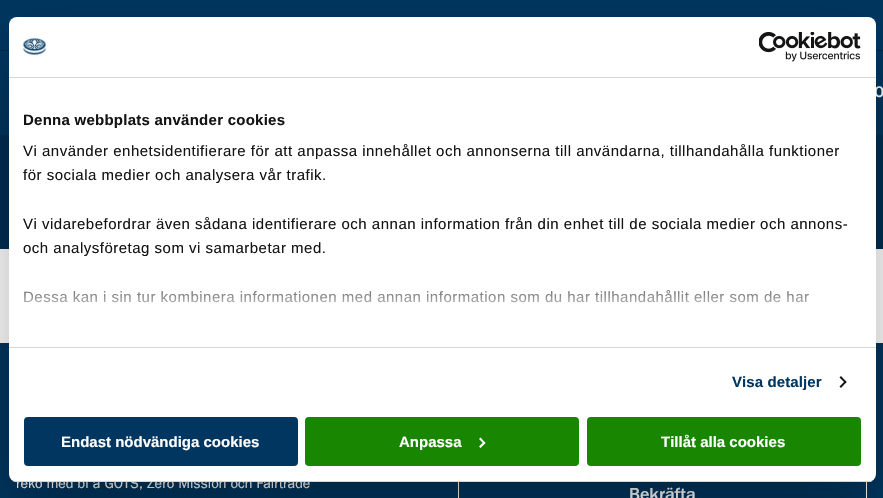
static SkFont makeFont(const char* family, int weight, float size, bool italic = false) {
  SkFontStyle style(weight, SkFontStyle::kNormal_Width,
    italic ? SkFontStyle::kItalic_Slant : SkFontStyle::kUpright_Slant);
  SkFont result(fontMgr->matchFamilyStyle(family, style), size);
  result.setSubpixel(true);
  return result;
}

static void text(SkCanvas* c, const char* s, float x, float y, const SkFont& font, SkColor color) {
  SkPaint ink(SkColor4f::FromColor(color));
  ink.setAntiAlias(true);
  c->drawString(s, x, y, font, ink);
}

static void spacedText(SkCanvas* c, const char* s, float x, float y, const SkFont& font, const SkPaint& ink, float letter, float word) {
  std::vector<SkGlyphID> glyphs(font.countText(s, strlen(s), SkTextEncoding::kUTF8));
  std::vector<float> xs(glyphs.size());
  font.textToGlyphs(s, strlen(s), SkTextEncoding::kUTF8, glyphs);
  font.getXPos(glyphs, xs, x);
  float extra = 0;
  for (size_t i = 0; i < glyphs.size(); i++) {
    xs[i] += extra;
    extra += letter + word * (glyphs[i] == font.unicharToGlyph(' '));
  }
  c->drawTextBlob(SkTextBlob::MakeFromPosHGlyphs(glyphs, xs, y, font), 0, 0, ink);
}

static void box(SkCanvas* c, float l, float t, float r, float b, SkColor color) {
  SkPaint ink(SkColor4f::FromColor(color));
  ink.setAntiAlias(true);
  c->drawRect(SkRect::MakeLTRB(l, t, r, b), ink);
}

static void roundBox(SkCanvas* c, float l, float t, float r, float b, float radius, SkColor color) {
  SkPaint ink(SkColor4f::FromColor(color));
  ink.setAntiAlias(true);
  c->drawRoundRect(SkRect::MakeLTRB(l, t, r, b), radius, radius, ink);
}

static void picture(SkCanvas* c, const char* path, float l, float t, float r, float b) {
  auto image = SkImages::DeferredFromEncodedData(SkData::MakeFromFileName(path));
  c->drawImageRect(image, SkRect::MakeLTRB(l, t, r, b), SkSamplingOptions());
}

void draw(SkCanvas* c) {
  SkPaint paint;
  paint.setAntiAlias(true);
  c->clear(0xffffffff);
  box(c, 0, 0, 883, 135, 0xff003660);
  box(c, 0, 50, 883, 51, 0xff002644);
  SkFont face1 = makeFont("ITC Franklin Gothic", 500, 16);
  text(c, "O", 874, 97, face1, 0xffffffff);
  box(c, 0, 135, 883, 249, 0xff002e52);
  box(c, 0, 343, 883, 498, 0xff003660);
  SkFont face2 = makeFont("ITC Franklin Gothic", 400, 14);
  text(c, "reko med bl a GOTS, Zero Mission och Fairtrade", 16, 488, face2, 0xffffffff);
  paint.setStyle(SkPaint::kStroke_Style);
  paint.setStrokeWidth(1);
  paint.setColor(0xffffffff);
  c->drawRect(SkRect::MakeLTRB(458.5f, 471.5f, 866.5f, 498.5f), paint);
  SkFont face3 = makeFont("ITC Franklin Gothic", 500, 18);
  text(c, "Bekräfta", 629, 500, face3, 0xffffffff);
  paint.setStyle(SkPaint::kFill_Style);
  paint.setColor(0x4d000000);
  paint.setMaskFilter(SkMaskFilter::MakeBlur(kNormal_SkBlurStyle, 34));
  c->drawRoundRect(SkRect::MakeLTRB(9, 49, 876, 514), 8, 8, paint);
  paint.setMaskFilter(nullptr);
  roundBox(c, 9, 17, 876, 482, 8, 0xffffffff);
  box(c, 9, 77, 876, 78, 0xffd6d6d6);
  picture(c, "img_01.png", 23, 38, 46, 56);
  picture(c, "img_02.png", 759, 32, 861, 62);
  box(c, 9, 347, 876, 348, 0xffd6d6d6);
  SkFont face4 = makeFont("Liberation Sans", 700, 15);
  paint.setColor(0xff141414);
  spacedText(c, "Denna webbplats använder cookies", 23, 125, face4, paint, 0.25f, 0);
  SkFont face5 = makeFont("Liberation Sans", 400, 15);
  spacedText(c, "Vi använder enhetsidentifierare för att anpassa innehållet och annonserna till användarna, tillhandahålla funktioner", 23, 156, face5, paint, 0.5f, 0);
  spacedText(c, "för sociala medier och analysera vår trafik.", 23, 180, face5, paint, 0.5f, 0);
  spacedText(c, "Vi vidarebefordrar även sådana identifierare och annan information från din enhet till de sociala medier och annons-", 23, 229, face5, paint, 0.5f, 0);
  spacedText(c, "och analysföretag som vi samarbetar med.", 23, 253, face5, paint, 0.5f, 0);
  spacedText(c, "Dessa kan i sin tur kombinera informationen med annan information som du har tillhandahållit eller som de har", 23, 302, face5, paint, 0.5f, 0);
  {
    const SkColor colors[] = {0xffffffff, 0xccffffff, 0x00ffffff};
    const float stops[] = {0, 0.5f, 1};
    const SkPoint ends[] = {{436, 347}, {436, 272}};
    paint.setShader(SkGradientShader::MakeLinear(ends, colors, stops, 3, SkTileMode::kClamp));
    paint.setAlpha(255);
  }
  c->drawRect(SkRect::MakeLTRB(24, 289, 809, 303), paint);
  paint.setShader(nullptr);
  paint.setColor(0xff003660);
  spacedText(c, "Visa detaljer", 732, 387, face4, paint, 0.1f, 0);
  paint.setColor(0xff141414);
  c->drawPath(SkPathBuilder().moveTo(841, 376).lineTo(846.5f, 382).lineTo(845.5f, 383.5f).lineTo(839.5f, 377.5f).close().detach(), paint);
  c->drawPath(SkPathBuilder().moveTo(845.5f, 380.5f).lineTo(846.5f, 382).lineTo(841, 388).lineTo(839.5f, 386.5f).close().detach(), paint);
  c->save();
  c->clipPath(SkPathBuilder().moveTo(17, 17).lineTo(868, 17).cubicTo(872.5f, 17, 876, 20.5f, 876, 25).lineTo(876, 474).cubicTo(876, 478.5f, 872.5f, 482, 868, 482).lineTo(17, 482).cubicTo(12.5f, 482, 9, 478.5f, 9, 474).lineTo(9, 25).cubicTo(9, 20.5f, 12.5f, 17, 17, 17).close().detach(), true);
  box(c, 9, 481, 876, 482, 0xffd6d6d6);
  c->restore();
  paint.setColor(0xff003660);
  c->drawRoundRect(SkRect::MakeLTRB(25, 418, 297, 465), 3, 3, paint);
  paint.setStyle(SkPaint::kStroke_Style);
  paint.setStrokeWidth(2);
  c->drawRoundRect(SkRect::MakeLTRB(25, 418, 297, 465), 3, 3, paint);
  text(c, "Endast nödvändiga cookies", 61, 447, face4, 0xffffffff);
  paint.setStyle(SkPaint::kFill_Style);
  paint.setColor(0xff188600);
  c->drawRoundRect(SkRect::MakeLTRB(306, 418, 578, 465), 3, 3, paint);
  paint.setStyle(SkPaint::kStroke_Style);
  c->drawRoundRect(SkRect::MakeLTRB(306, 418, 578, 465), 3, 3, paint);
  text(c, "Anpassa", 399, 447, face4, 0xffffffff);
  paint.setStyle(SkPaint::kFill_Style);
  paint.setColor(0xffffffff);
  c->drawPath(SkPathBuilder().moveTo(480.5f, 437.5f).lineTo(485.5f, 443).lineTo(484, 444).lineTo(479, 439).close().detach(), paint);
  c->drawPath(SkPathBuilder().moveTo(484, 441.5f).lineTo(485.5f, 443).lineTo(480.5f, 448).lineTo(479, 446.5f).close().detach(), paint);
  paint.setColor(0xff188600);
  c->drawRoundRect(SkRect::MakeLTRB(588, 418, 860, 465), 3, 3, paint);
  paint.setStyle(SkPaint::kStroke_Style);
  c->drawRoundRect(SkRect::MakeLTRB(588, 418, 860, 465), 3, 3, paint);
  text(c, "Tillåt alla cookies", 661, 447, face4, 0xffffffff);
}
